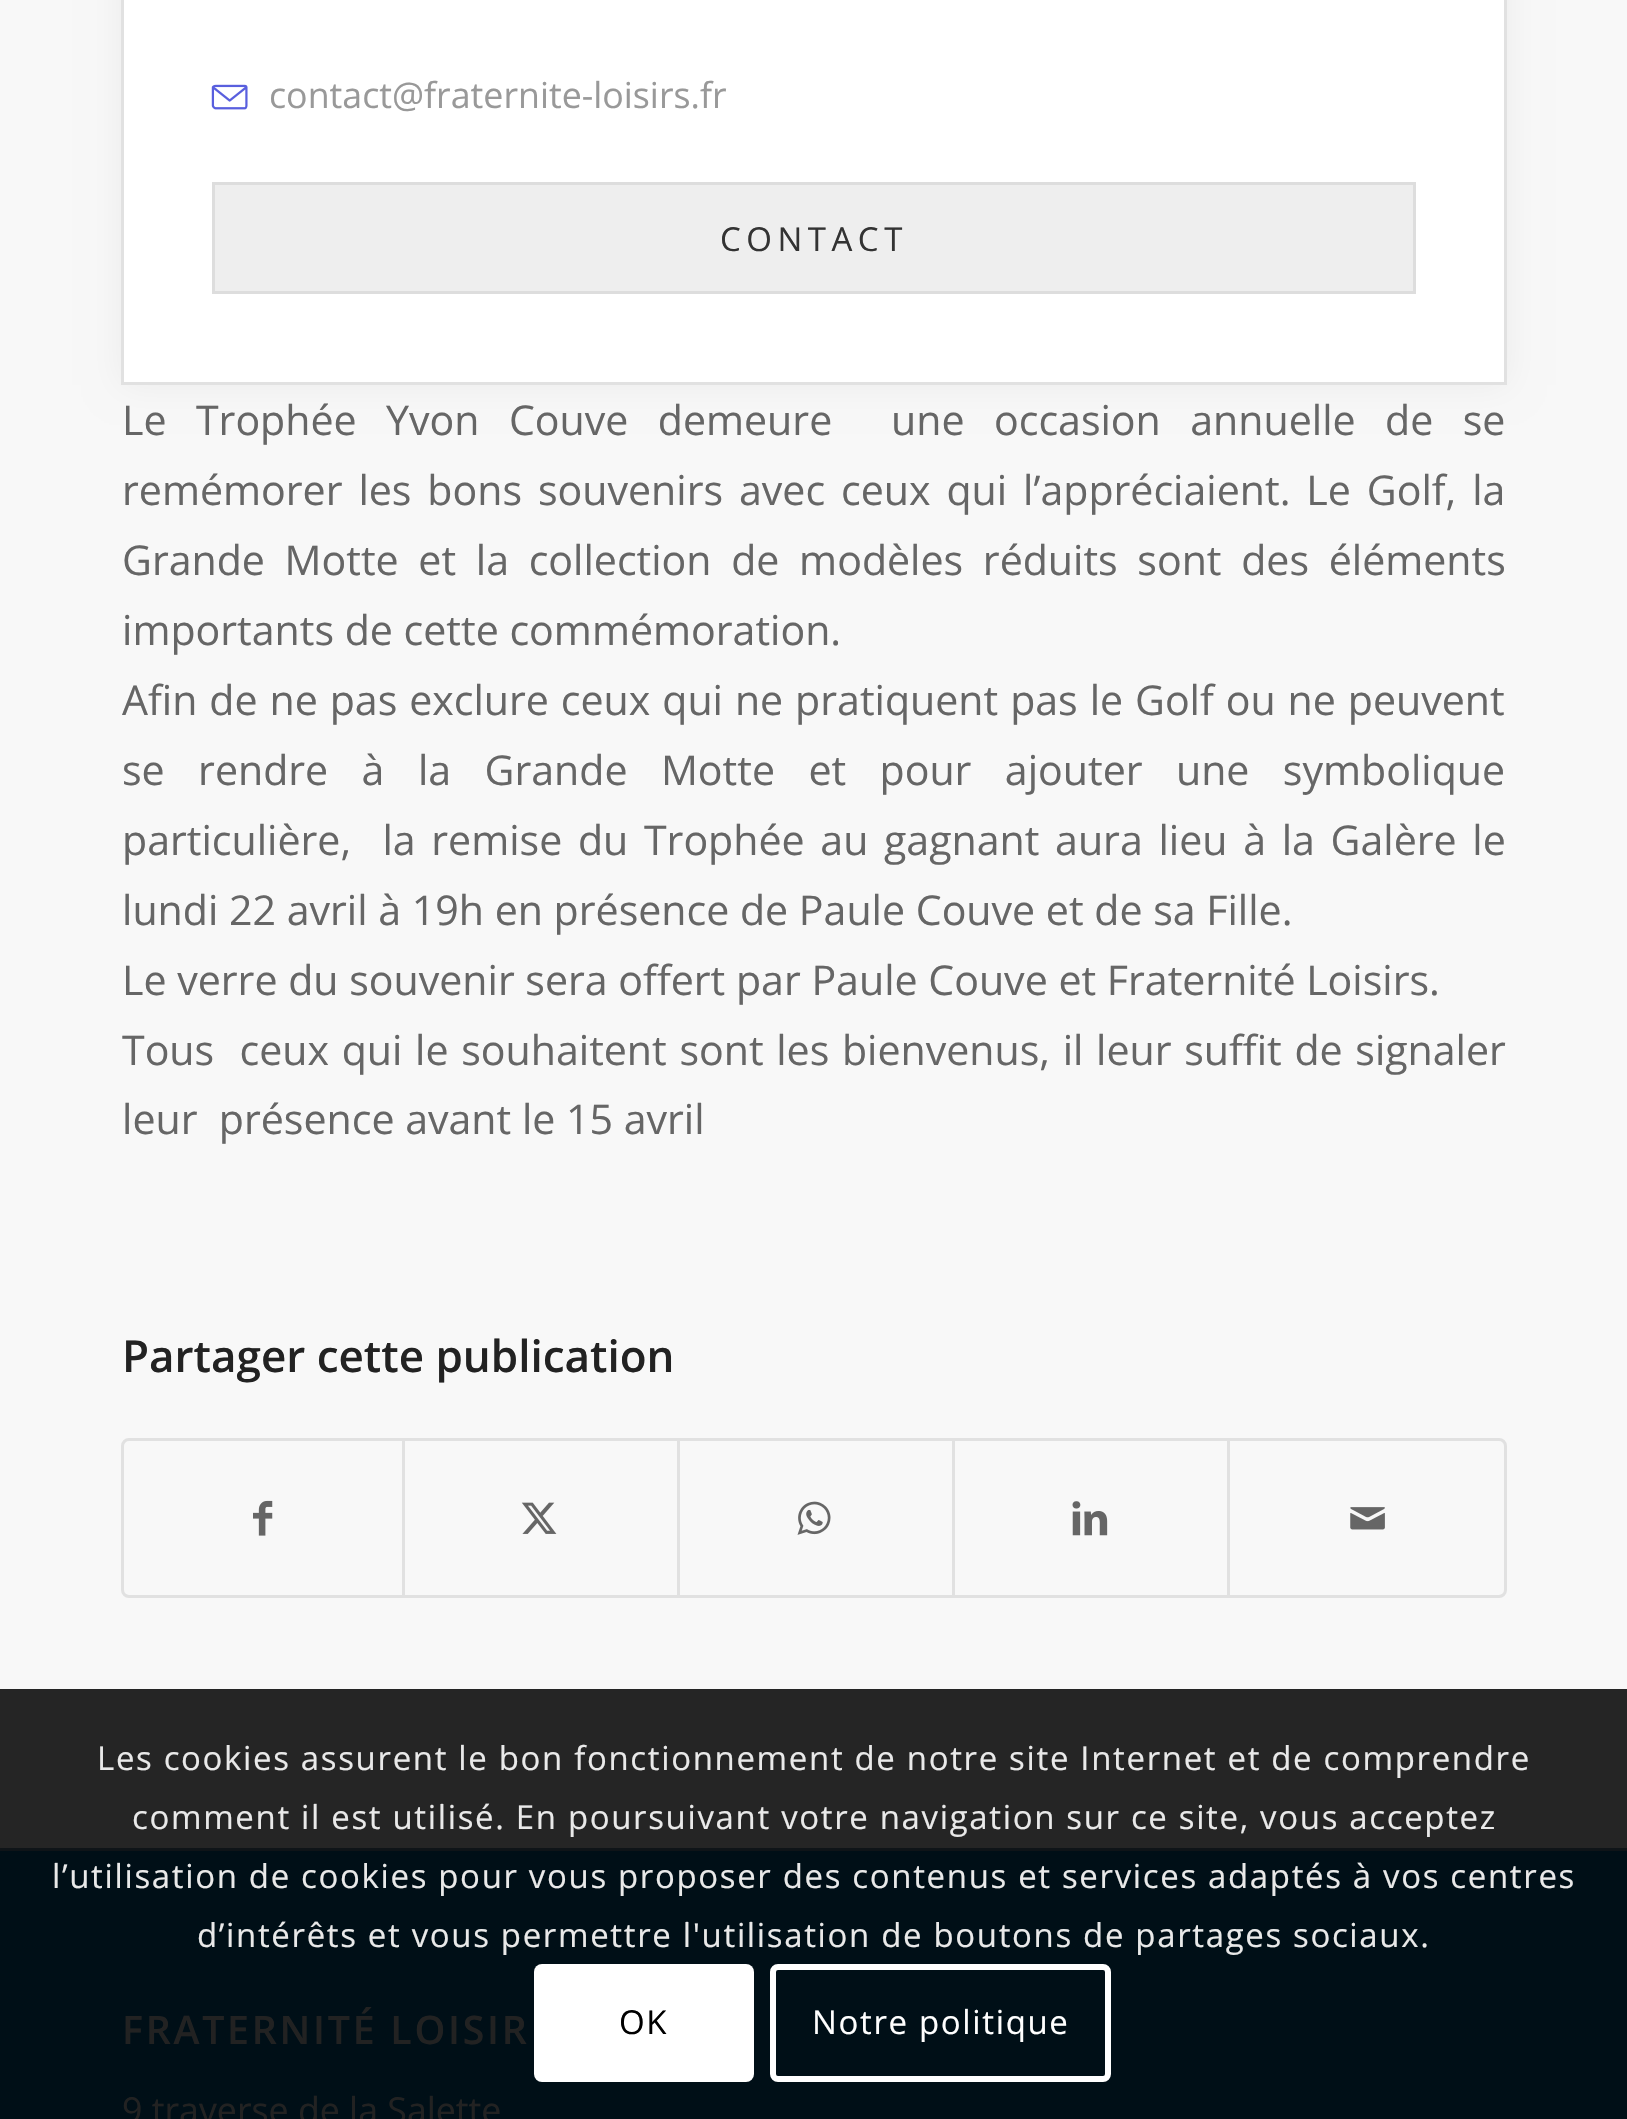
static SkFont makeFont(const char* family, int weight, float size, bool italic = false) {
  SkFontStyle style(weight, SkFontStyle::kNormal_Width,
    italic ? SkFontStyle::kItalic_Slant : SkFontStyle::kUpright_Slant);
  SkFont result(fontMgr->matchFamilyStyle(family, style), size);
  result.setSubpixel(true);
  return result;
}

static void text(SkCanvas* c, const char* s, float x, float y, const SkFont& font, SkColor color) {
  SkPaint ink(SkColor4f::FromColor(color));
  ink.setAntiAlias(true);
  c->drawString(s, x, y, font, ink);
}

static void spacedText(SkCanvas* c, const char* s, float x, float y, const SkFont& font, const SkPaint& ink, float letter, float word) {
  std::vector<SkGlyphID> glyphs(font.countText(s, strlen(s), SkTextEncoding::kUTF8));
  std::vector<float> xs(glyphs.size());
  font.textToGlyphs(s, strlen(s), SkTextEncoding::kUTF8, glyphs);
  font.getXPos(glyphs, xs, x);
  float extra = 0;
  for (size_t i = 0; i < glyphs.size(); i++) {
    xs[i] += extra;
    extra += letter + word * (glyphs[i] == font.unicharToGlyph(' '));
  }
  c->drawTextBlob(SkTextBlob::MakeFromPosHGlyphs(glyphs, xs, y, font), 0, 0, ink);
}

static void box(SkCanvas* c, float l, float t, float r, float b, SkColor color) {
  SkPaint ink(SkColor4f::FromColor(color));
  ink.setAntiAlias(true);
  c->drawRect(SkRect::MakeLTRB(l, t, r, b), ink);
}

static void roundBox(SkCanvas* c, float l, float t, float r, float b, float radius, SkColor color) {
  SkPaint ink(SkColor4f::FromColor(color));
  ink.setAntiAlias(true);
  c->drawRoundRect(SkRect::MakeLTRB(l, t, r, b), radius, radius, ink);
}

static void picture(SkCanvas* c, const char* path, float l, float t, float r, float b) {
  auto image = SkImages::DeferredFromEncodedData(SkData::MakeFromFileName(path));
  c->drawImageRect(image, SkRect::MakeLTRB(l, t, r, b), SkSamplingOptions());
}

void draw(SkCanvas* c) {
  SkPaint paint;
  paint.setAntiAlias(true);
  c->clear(0xfff8f8f8);
  box(c, 0, 1689, 1627, 1848, 0xff252525);
  paint.setColor(0x0d000000);
  paint.setMaskFilter(SkMaskFilter::MakeBlur(kNormal_SkBlurStyle, 16.5f));
  c->drawRect(SkRect::MakeLTRB(121, -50, 1507, 385), paint);
  paint.setMaskFilter(nullptr);
  paint.setColor(0xffffffff);
  c->drawRect(SkRect::MakeLTRB(122.5f, -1.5f, 1505.5f, 383.5f), paint);
  paint.setStyle(SkPaint::kStroke_Style);
  paint.setStrokeWidth(3);
  paint.setColor(0xffe1e1e1);
  c->drawRect(SkRect::MakeLTRB(122.5f, -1.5f, 1505.5f, 383.5f), paint);
  picture(c, "img_01.png", 211, 84, 248, 110);
  SkFont face1 = makeFont("Open Sans", 400, 35.75f);
  text(c, "contact@fraternite-loisirs.fr", 269, 108, face1, 0xff999999);
  paint.setStyle(SkPaint::kFill_Style);
  paint.setColor(0xffeeeeee);
  c->drawRect(SkRect::MakeLTRB(213.5f, 183.5f, 1414.5f, 292.5f), paint);
  paint.setStyle(SkPaint::kStroke_Style);
  paint.setColor(0xffdddddd);
  c->drawRect(SkRect::MakeLTRB(213.5f, 183.5f, 1414.5f, 292.5f), paint);
  SkFont face2 = makeFont("Open Sans", 400, 33);
  paint.setStyle(SkPaint::kFill_Style);
  paint.setColor(0xff333333);
  spacedText(c, "CONTACT", 720, 251, face2, paint, 5.5f, 0);
  SkFont face3 = makeFont("Open Sans", 400, 41.1f);
  paint.setColor(0xff666666);
  spacedText(c, "Le Trophée Yvon Couve demeure  une occasion annuelle de se", 122, 435, face3, paint, 0, 18.75f);
  spacedText(c, "remémorer les bons souvenirs avec ceux qui l’appréciaient. Le Golf, la", 122, 505, face3, paint, 0, 5.25f);
  spacedText(c, "Grande Motte et la collection de modèles réduits sont des éléments", 122, 575, face3, paint, 0, 9);
  text(c, "importants de cette commémoration.", 122, 645, face3, 0xff666666);
  spacedText(c, "Afin de ne pas exclure ceux qui ne pratiquent pas le Golf ou ne peuvent", 122, 715, face3, paint, 0, 1.25f);
  spacedText(c, "se rendre à la Grande Motte et pour ajouter une symbolique", 122, 785, face3, paint, 0, 22.75f);
  spacedText(c, "particulière,  la remise du Trophée au gagnant aura lieu à la Galère le", 122, 855, face3, paint, 0, 5);
  text(c, "lundi 22 avril à 19h en présence de Paule Couve et de sa Fille.", 122, 925, face3, 0xff666666);
  text(c, "Le verre du souvenir sera offert par Paule Couve et Fraternité Loisirs.", 122, 995, face3, 0xff666666);
  spacedText(c, "Tous  ceux qui le souhaitent sont les bienvenus, il leur suffit de signaler", 122, 1065, face3, paint, 0, 2);
  text(c, "leur  présence avant le 15 avril", 122, 1134, face3, 0xff666666);
  SkFont face4 = makeFont("Open Sans", 600, 44);
  text(c, "Partager cette publication", 122, 1372, face4, 0xff222222);
  paint.setStyle(SkPaint::kStroke_Style);
  paint.setColor(0xffe1e1e1);
  c->drawRoundRect(SkRect::MakeLTRB(122.5f, 1439.5f, 1505.5f, 1596.5f), 6.5f, 6.5f, paint);
  picture(c, "img_02.png", 253, 1500, 273, 1536);
  box(c, 402, 1441, 405, 1595, 0xffe1e1e1);
  picture(c, "img_03.png", 521, 1502, 557, 1534);
  box(c, 677, 1441, 680, 1595, 0xffe1e1e1);
  picture(c, "img_04.png", 797, 1501, 831, 1535);
  box(c, 952, 1441, 955, 1595, 0xffe1e1e1);
  picture(c, "img_05.png", 1072, 1501, 1108, 1536);
  box(c, 1227, 1441, 1230, 1595, 0xffe1e1e1);
  picture(c, "img_06.png", 1350, 1507, 1385, 1530);
  box(c, 0, 1851, 1627, 2119, 0xff000f17);
  box(c, 0, 1848, 1627, 1851, 0xff0f1418);
  SkFont face5 = makeFont("Open Sans", 600, 39.25f);
  paint.setStyle(SkPaint::kFill_Style);
  paint.setColor(0xff222222);
  spacedText(c, "FRATERNITÉ LOISIR", 122, 2044, face5, paint, 2.75f, 0);
  text(c, "9 traverse de la Salette", 122, 2123, face1, 0xff222222);
  paint.setColor(0xffe9e9e9);
  spacedText(c, "Les cookies assurent le bon fonctionnement de notre site Internet et de comprendre", 97, 1770, face2, paint, 1.65f, 0);
  spacedText(c, "comment il est utilisé. En poursuivant votre navigation sur ce site, vous acceptez", 132, 1829, face2, paint, 1.65f, 0);
  spacedText(c, "l’utilisation de cookies pour vous proposer des contenus et services adaptés à vos centres", 52, 1888, face2, paint, 1.65f, 0);
  spacedText(c, "d’intérêts et vous permettre l'utilisation de boutons de partages sociaux.", 197, 1947, face2, paint, 1.65f, 0);
  roundBox(c, 534, 1964, 754, 2082, 8, 0xffffffff);
  paint.setColor(0xff000000);
  spacedText(c, "OK", 619, 2034, face2, paint, 1.65f, 0);
  paint.setStyle(SkPaint::kStroke_Style);
  paint.setStrokeWidth(6);
  paint.setColor(0xffffffff);
  c->drawRoundRect(SkRect::MakeLTRB(773, 1967, 1108, 2079), 5, 5, paint);
  paint.setStyle(SkPaint::kFill_Style);
  spacedText(c, "Notre politique", 812, 2034, face2, paint, 1.65f, 0);
}
